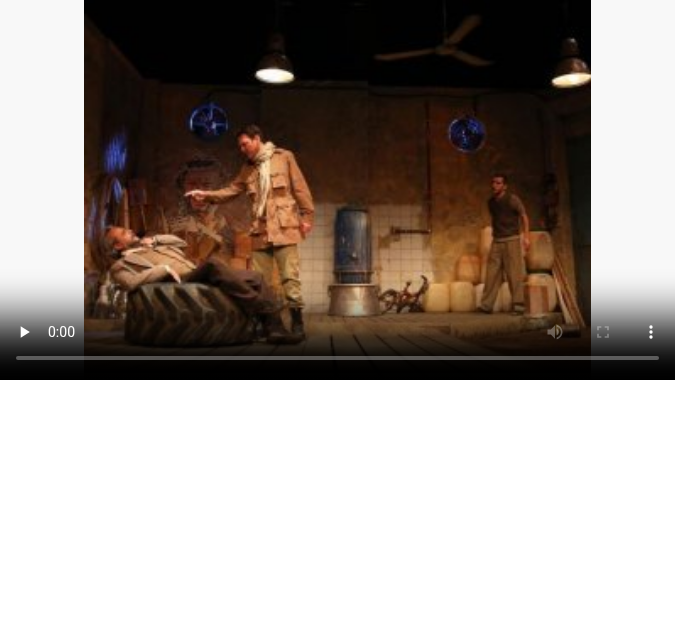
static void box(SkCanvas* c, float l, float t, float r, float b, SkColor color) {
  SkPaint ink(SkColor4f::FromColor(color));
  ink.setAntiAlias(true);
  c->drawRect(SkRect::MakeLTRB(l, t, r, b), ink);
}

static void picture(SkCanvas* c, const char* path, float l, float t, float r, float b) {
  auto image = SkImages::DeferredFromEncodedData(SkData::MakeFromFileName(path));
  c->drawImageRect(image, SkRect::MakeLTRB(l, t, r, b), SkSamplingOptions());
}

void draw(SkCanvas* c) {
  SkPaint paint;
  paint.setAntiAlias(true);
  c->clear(0xffffffff);
  box(c, 0, 0, 675, 376, 0xfff8f8f8);
  picture(c, "img_01.png", 0, 0, 675, 380);
}
